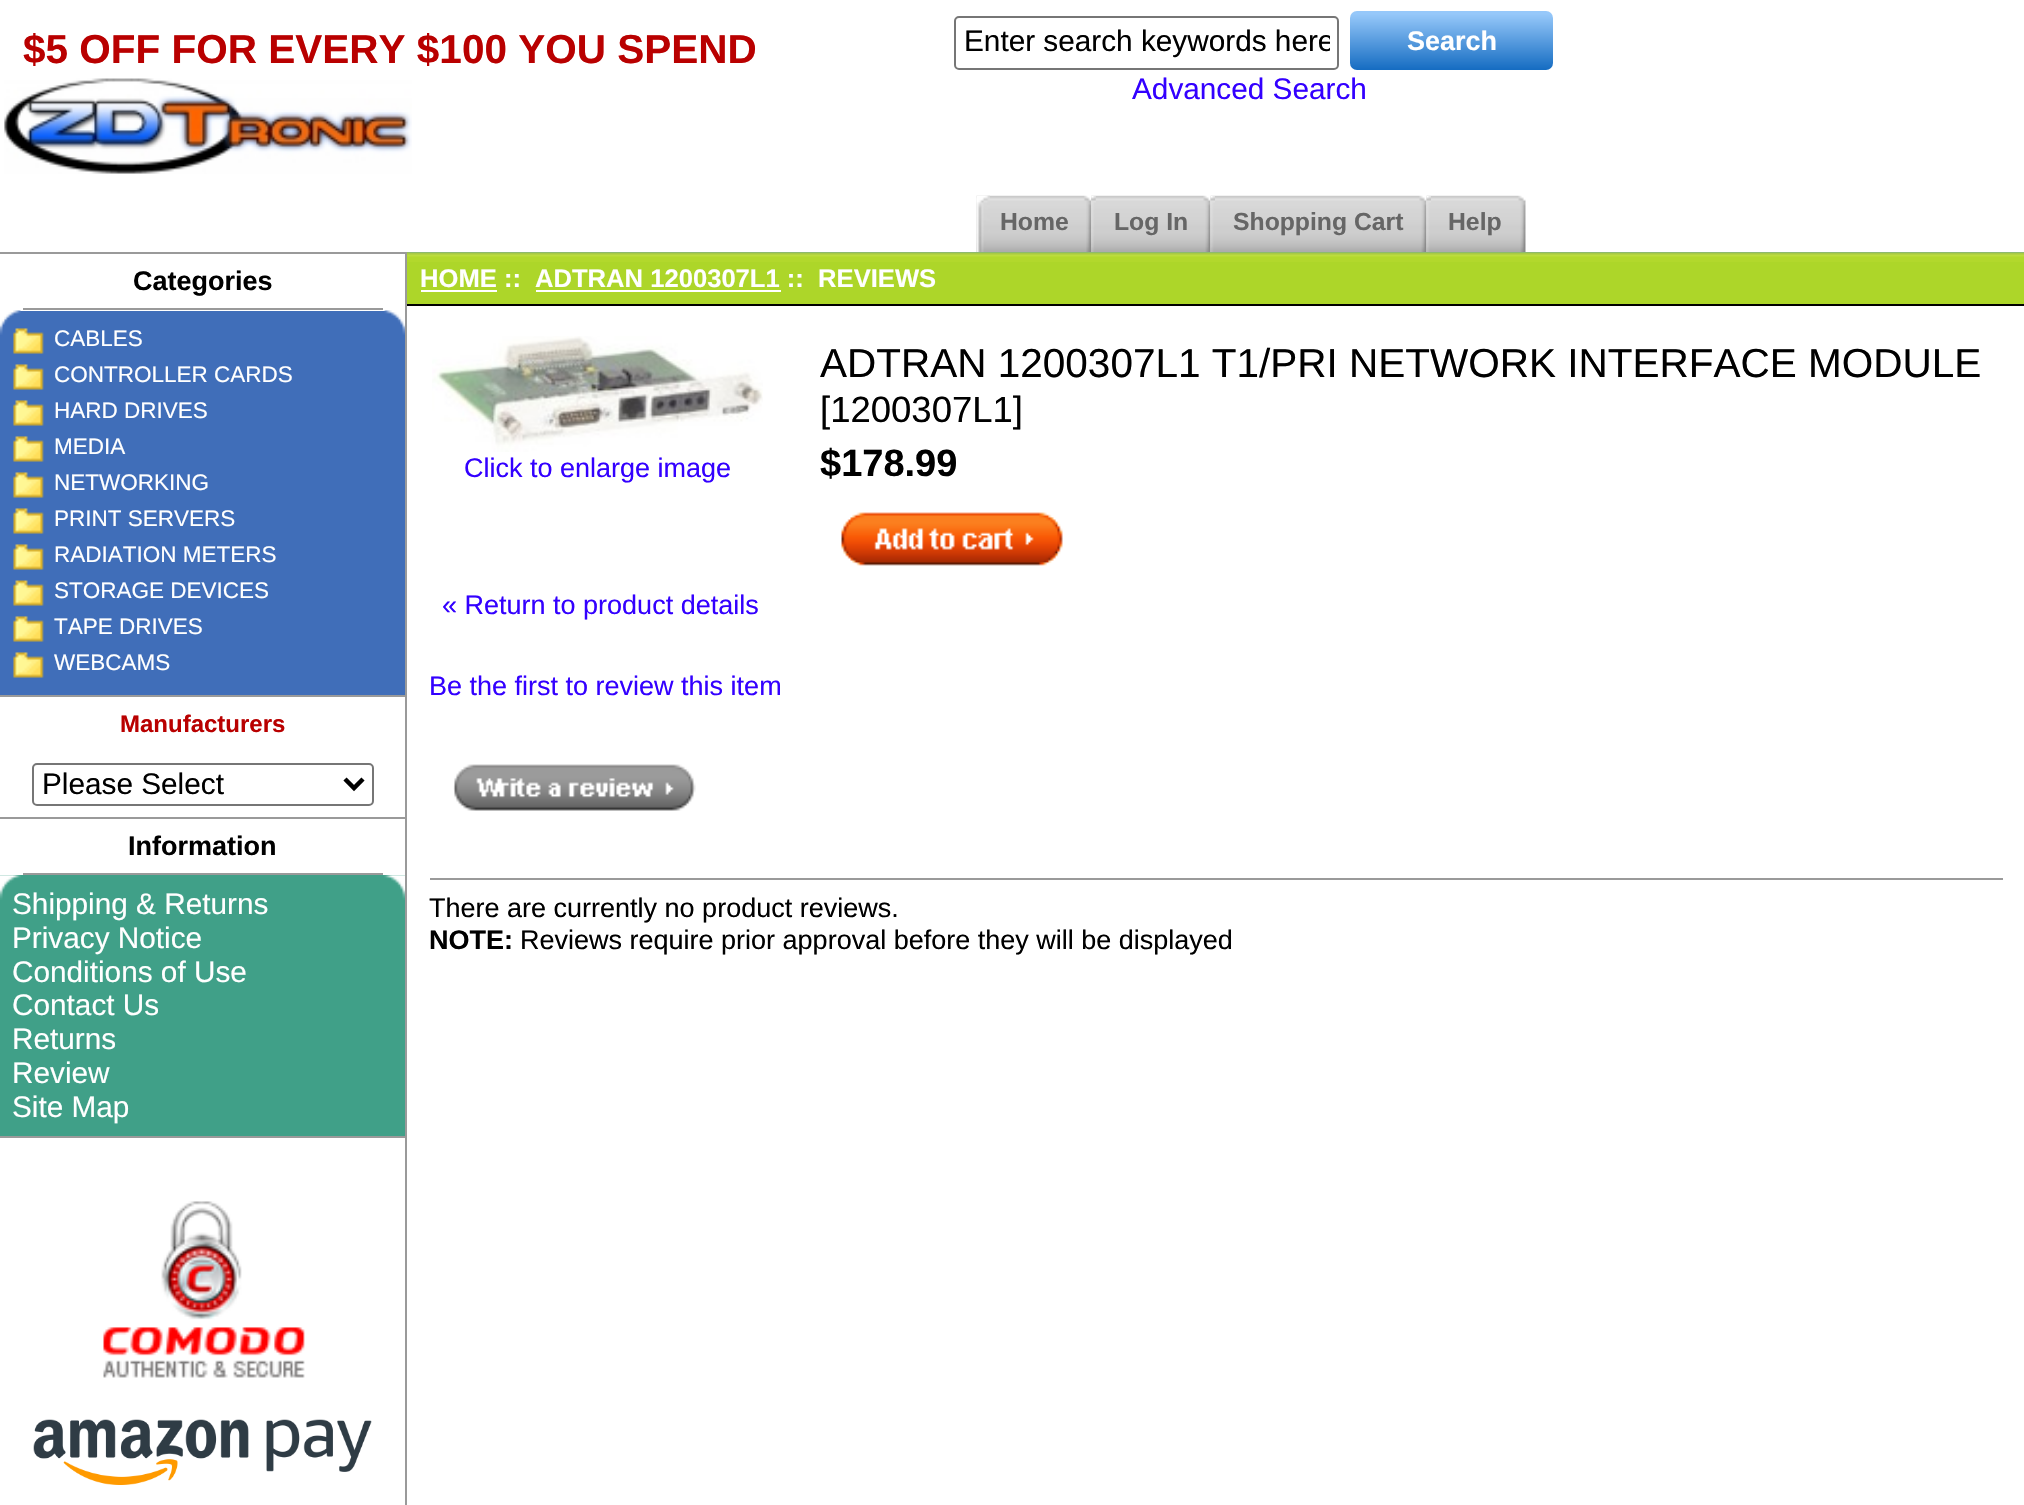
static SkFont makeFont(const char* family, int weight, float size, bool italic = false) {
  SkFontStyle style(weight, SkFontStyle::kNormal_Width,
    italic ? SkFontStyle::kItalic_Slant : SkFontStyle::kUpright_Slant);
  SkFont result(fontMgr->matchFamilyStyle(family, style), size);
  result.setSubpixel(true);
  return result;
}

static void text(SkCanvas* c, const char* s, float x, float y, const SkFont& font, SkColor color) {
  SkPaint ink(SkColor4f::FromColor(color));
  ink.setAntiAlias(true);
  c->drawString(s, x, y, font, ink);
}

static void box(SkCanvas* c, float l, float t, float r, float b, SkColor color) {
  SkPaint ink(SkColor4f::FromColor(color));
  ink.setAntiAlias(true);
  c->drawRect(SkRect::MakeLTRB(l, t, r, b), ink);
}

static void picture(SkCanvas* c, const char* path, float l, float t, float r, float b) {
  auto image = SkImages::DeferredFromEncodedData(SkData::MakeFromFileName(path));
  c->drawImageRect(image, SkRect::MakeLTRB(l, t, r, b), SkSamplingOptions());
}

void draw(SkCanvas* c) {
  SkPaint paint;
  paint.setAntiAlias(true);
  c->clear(0xffffffff);
  SkFont face1 = makeFont("Liberation Sans", 700, 40.5f);
  text(c, "$5 OFF FOR EVERY $100 YOU SPEND", 23, 63, face1, 0xffb90000);
  picture(c, "img_01.png", 4, 78, 412, 174);
  paint.setStyle(SkPaint::kStroke_Style);
  paint.setStrokeWidth(2);
  paint.setColor(0xff767676);
  c->drawRoundRect(SkRect::MakeLTRB(955, 17, 1338, 69), 4, 4, paint);
  c->save();
  c->clipRect(SkRect::MakeLTRB(963, 23, 1330, 63));
  SkFont face2 = makeFont("Liberation Sans", 400, 29.75f);
  text(c, "Enter search keywords here", 964, 51, face2, 0xff000000);
  c->restore();
  paint.setStyle(SkPaint::kFill_Style);
  {
    const SkColor colors[] = {0xff96c8fa, 0xff156cc2};
    const float stops[] = {0.05f, 1};
    const SkPoint ends[] = {{1350, 11}, {1350, 70}};
    paint.setShader(SkGradientShader::MakeLinear(ends, colors, stops, 2, SkTileMode::kClamp));
    paint.setAlpha(255);
  }
  c->drawRoundRect(SkRect::MakeLTRB(1350, 11, 1553, 70), 7, 7, paint);
  SkFont face3 = makeFont("Liberation Sans", 700, 27);
  text(c, "Search", 1407, 50, face3, 0xffffffff);
  text(c, "Advanced Search", 1132, 99, face2, 0xff3300ff);
  picture(c, "img_02.png", 976, 195, 1092, 252);
  picture(c, "img_03.png", 976, 195, 990, 252);
  SkFont face4 = makeFont("Liberation Sans", 700, 24.75f);
  text(c, "Home", 1000, 230, face4, 0xff666666);
  picture(c, "img_04.png", 1091, 195, 1211, 252);
  picture(c, "img_05.png", 1091, 196, 1096, 252);
  text(c, "Log In", 1114, 230, face4, 0xff666666);
  picture(c, "img_06.png", 1210, 195, 1427, 252);
  picture(c, "img_07.png", 1210, 196, 1215, 252);
  text(c, "Shopping Cart", 1233, 230, face4, 0xff666666);
  picture(c, "img_08.png", 1426, 195, 1526, 252);
  picture(c, "img_07.png", 1426, 196, 1431, 252);
  text(c, "Help", 1448, 230, face4, 0xff666666);
  box(c, 0, 252, 407, 254, 0xff9a9a9a);
  box(c, 405, 252, 407, 1505, 0xff9a9a9a);
  box(c, 0, 695, 405, 697, 0xff9a9a9a);
  box(c, 23, 308, 383, 310, 0xff9a9a9a);
  text(c, "Categories", 133, 290, face3, 0xff000000);
  box(c, 0, 311, 405, 695, 0xff406eb9);
  picture(c, "img_09.png", 0, 310, 405, 335);
  picture(c, "img_10.png", 13, 328, 44, 354);
  SkFont face5 = makeFont("Liberation Sans", 400, 22.5f);
  text(c, "CABLES", 54, 346, face5, 0xffffffff);
  picture(c, "img_10.png", 13, 364, 44, 390);
  text(c, "CONTROLLER CARDS", 54, 382, face5, 0xffffffff);
  picture(c, "img_10.png", 13, 400, 44, 426);
  text(c, "HARD DRIVES", 54, 418, face5, 0xffffffff);
  picture(c, "img_10.png", 13, 436, 44, 462);
  text(c, "MEDIA", 54, 454, face5, 0xffffffff);
  picture(c, "img_10.png", 13, 472, 44, 498);
  text(c, "NETWORKING", 54, 490, face5, 0xffffffff);
  picture(c, "img_10.png", 13, 508, 44, 534);
  text(c, "PRINT SERVERS", 54, 526, face5, 0xffffffff);
  picture(c, "img_10.png", 13, 544, 44, 570);
  text(c, "RADIATION METERS", 54, 562, face5, 0xffffffff);
  picture(c, "img_11.png", 13, 580, 44, 606);
  text(c, "STORAGE DEVICES", 54, 598, face5, 0xffffffff);
  picture(c, "img_10.png", 13, 616, 44, 642);
  text(c, "TAPE DRIVES", 54, 634, face5, 0xffffffff);
  picture(c, "img_10.png", 13, 652, 44, 678);
  text(c, "WEBCAMS", 54, 670, face5, 0xffffffff);
  box(c, 0, 817, 405, 819, 0xff9a9a9a);
  SkFont face6 = makeFont("Liberation Sans", 700, 24);
  text(c, "Manufacturers", 120, 732, face6, 0xffb90000);
  paint.setStyle(SkPaint::kStroke_Style);
  paint.setShader(nullptr);
  paint.setColor(0xff767676);
  c->drawRoundRect(SkRect::MakeLTRB(33, 764, 373, 805), 4, 4, paint);
  paint.setStrokeWidth(4.5f);
  paint.setColor(0xff000000);
  c->drawPath(SkPathBuilder().moveTo(345, 779).lineTo(354, 788).lineTo(363, 779).detach(), paint);
  text(c, "Please Select", 42, 794, face2, 0xff000000);
  box(c, 0, 1136, 405, 1138, 0xff9a9a9a);
  box(c, 23, 873, 383, 875, 0xff9a9a9a);
  text(c, "Information", 128, 855, face3, 0xff000000);
  box(c, 0, 875, 405, 1136, 0xff40a088);
  picture(c, "img_12.png", 0, 875, 405, 900);
  text(c, "Shipping & Returns", 12, 914, face2, 0xffffffff);
  text(c, "Privacy Notice", 12, 948, face2, 0xffffffff);
  text(c, "Conditions of Use", 12, 982, face2, 0xffffffff);
  text(c, "Contact Us", 12, 1015, face2, 0xffffffff);
  text(c, "Returns", 12, 1049, face2, 0xffffffff);
  text(c, "Review", 12, 1083, face2, 0xffffffff);
  text(c, "Site Map", 12, 1117, face2, 0xffffffff);
  picture(c, "img_13.png", 103, 1201, 305, 1378);
  picture(c, "img_14.png", 33, 1419, 372, 1485);
  box(c, 407, 252, 2024, 304, 0xffadd629);
  picture(c, "img_15.png", 407, 252, 2024, 262);
  box(c, 407, 304, 2024, 306, 0xff000000);
  SkFont face7 = makeFont("Liberation Sans", 700, 25.6f);
  text(c, "HOME ::", 420, 287, face7, 0xffffffff);
  box(c, 421, 290, 497, 292, 0xffffffff);
  text(c, "ADTRAN 1200307L1 ::  REVIEWS", 535, 287, face7, 0xffffffff);
  box(c, 536, 290, 781, 292, 0xffffffff);
  SkFont face8 = makeFont("Liberation Sans", 400, 40.5f);
  text(c, "ADTRAN 1200307L1 T1/PRI NETWORK INTERFACE MODULE", 820, 377, face8, 0xff000000);
  SkFont face9 = makeFont("Liberation Sans", 400, 36.5f);
  text(c, "[1200307L1]", 820, 422, face9, 0xff000000);
  picture(c, "img_16.png", 432, 336, 763, 452);
  SkFont face10 = makeFont("Liberation Sans", 400, 27);
  text(c, "Click to enlarge image", 464, 477, face10, 0xff3300ff);
  SkFont face11 = makeFont("Liberation Sans", 700, 38);
  text(c, "$178.99", 820, 476, face11, 0xff000000);
  picture(c, "img_17.png", 841, 512, 1063, 566);
  text(c, "« Return to product details", 442, 614, face10, 0xff3300ff);
  text(c, "Be the first to review this item", 429, 695, face10, 0xff3300ff);
  picture(c, "img_18.png", 453, 764, 696, 811);
  box(c, 430, 878, 2003, 880, 0xff9a9a9a);
  text(c, "There are currently no product reviews.", 429, 917, face10, 0xff000000);
  text(c, "NOTE:", 429, 949, face3, 0xff000000);
  text(c, "Reviews require prior approval before they will be displayed", 520, 949, face10, 0xff000000);
}
